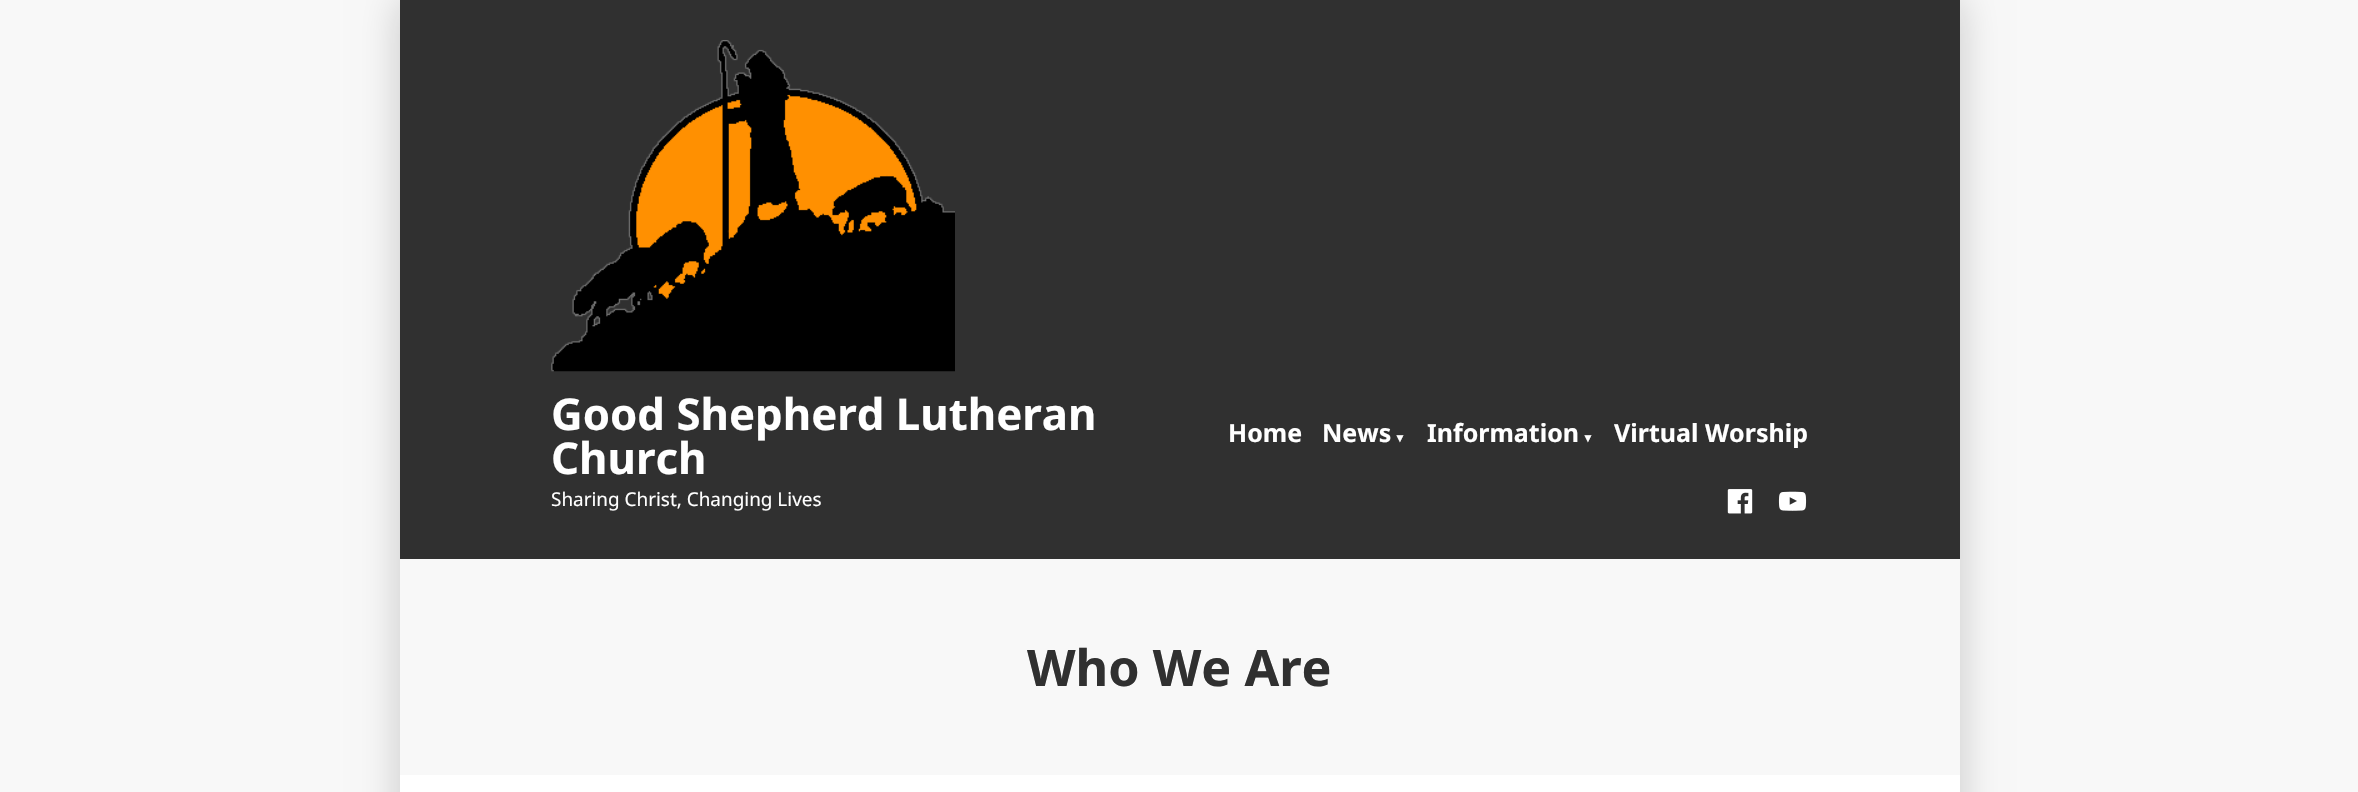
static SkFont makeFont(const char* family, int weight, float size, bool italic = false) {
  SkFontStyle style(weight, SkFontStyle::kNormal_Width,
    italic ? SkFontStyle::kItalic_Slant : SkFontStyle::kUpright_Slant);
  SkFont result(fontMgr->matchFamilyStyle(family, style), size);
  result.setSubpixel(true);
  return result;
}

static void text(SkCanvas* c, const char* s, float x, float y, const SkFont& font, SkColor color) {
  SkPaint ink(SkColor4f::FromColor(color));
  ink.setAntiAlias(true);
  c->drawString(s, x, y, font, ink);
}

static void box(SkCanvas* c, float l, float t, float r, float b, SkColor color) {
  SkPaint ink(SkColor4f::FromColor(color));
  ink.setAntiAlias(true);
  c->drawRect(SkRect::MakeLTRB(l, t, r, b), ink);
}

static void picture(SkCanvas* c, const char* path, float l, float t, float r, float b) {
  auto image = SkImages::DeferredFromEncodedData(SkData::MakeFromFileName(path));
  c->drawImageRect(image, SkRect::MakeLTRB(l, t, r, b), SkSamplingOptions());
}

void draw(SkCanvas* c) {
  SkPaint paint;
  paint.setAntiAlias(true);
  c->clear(0xfff8f8f8);
  paint.setColor(0x33000000);
  paint.setMaskFilter(SkMaskFilter::MakeBlur(kNormal_SkBlurStyle, 19));
  c->drawRect(SkRect::MakeLTRB(400, 0, 1960, 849), paint);
  paint.setMaskFilter(nullptr);
  box(c, 400, 775, 1960, 792, 0xffffffff);
  box(c, 400, 0, 1960, 559, 0xff303030);
  picture(c, "img_01.png", 551, 40, 955, 372);
  SkFont face1 = makeFont("Noto Sans", 700, 43.75f);
  text(c, "Good Shepherd Lutheran", 551, 430, face1, 0xffffffff);
  text(c, "Church", 551, 474, face1, 0xffffffff);
  SkFont face2 = makeFont("Noto Sans", 700, 25);
  text(c, "Home", 1228, 442, face2, 0xffffffff);
  text(c, "News", 1322, 442, face2, 0xffffffff);
  SkFont face3 = makeFont("Liberation Sans", 700, 12);
  text(c, "▼", 1394, 442, face3, 0xffffffff);
  text(c, "Information", 1427, 442, face2, 0xffffffff);
  text(c, "▼", 1582, 442, face3, 0xffffffff);
  text(c, "Virtual Worship", 1614, 442, face2, 0xffffffff);
  SkFont face4 = makeFont("Noto Sans", 400, 18.9f);
  text(c, "Sharing Christ, Changing Lives", 551, 506, face4, 0xffffffff);
  picture(c, "img_02.png", 1727, 489, 1753, 514);
  picture(c, "img_03.png", 1778, 491, 1807, 511);
  box(c, 400, 559, 1960, 775, 0xfff8f8f8);
  SkFont face5 = makeFont("Noto Sans", 700, 50.25f);
  text(c, "Who We Are", 1027, 686, face5, 0xff303030);
}
